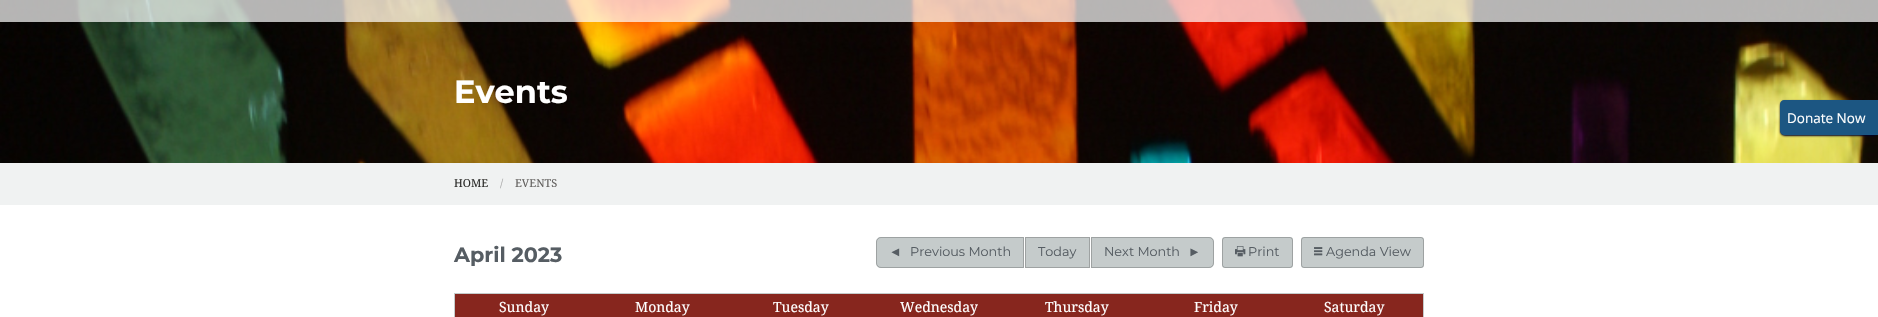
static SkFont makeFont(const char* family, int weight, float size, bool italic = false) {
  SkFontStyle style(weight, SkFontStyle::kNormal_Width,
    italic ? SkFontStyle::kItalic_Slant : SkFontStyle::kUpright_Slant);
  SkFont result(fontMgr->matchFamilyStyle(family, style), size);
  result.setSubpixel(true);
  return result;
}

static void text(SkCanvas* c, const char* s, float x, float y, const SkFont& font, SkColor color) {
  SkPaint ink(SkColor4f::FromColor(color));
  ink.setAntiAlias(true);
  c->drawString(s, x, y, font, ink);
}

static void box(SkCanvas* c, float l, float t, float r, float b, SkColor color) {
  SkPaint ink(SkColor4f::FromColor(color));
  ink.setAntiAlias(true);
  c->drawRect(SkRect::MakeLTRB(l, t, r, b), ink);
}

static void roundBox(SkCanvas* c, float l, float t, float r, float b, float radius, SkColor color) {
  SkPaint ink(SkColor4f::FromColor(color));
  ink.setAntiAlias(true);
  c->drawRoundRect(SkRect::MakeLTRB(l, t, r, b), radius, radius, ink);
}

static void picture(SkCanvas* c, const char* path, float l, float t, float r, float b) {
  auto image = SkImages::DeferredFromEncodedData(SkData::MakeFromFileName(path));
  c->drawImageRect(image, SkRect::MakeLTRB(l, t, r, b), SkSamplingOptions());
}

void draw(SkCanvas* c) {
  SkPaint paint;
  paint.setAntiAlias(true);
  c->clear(0xffffffff);
  picture(c, "img_01.png", 0, 0, 1878, 163);
  box(c, 0, 0, 1878, 22, 0xb3ffffff);
  SkFont face1 = makeFont("Montserrat", 700, 32);
  text(c, "Events", 454, 103, face1, 0xffffffff);
  paint.setColor(0xff000029);
  paint.setMaskFilter(SkMaskFilter::MakeBlur(kNormal_SkBlurStyle, 1));
  c->drawRoundRect(SkRect::MakeLTRB(1780, 101, 1878, 136), 5, 5, paint);
  paint.setMaskFilter(nullptr);
  paint.setColor(0xff1c5682);
  c->drawPath(SkPathBuilder().moveTo(1784, 100).lineTo(1878, 100).lineTo(1878, 135).lineTo(1785, 135).cubicTo(1782, 135, 1780, 133, 1780, 130).lineTo(1780, 104).cubicTo(1780, 102, 1782, 100, 1784, 100).close().detach(), paint);
  SkFont face2 = makeFont("Open Sans", 400, 13.5f);
  text(c, "Donate Now", 1787, 123, face2, 0xffffffff);
  box(c, 0, 163, 1878, 205, 0xfff0f2f2);
  SkFont face3 = makeFont("Droid Serif", 400, 11);
  text(c, "HOME", 454, 187, face3, 0xff2c2c2a);
  text(c, "/", 500, 187, face3, 0xffaaaaaa);
  text(c, "EVENTS", 515, 187, face3, 0xff63615f);
  SkFont face4 = makeFont("Montserrat", 700, 20.75f);
  text(c, "April 2023", 454, 262, face4, 0xff565d63);
  paint.setColor(0xffc5cbcb);
  c->drawPath(SkPathBuilder().moveTo(881, 237).lineTo(1024, 237).lineTo(1024, 268).lineTo(881, 268).cubicTo(878, 268, 876, 266, 876, 263).lineTo(876, 242).cubicTo(876, 239, 878, 237, 881, 237).close().detach(), paint);
  paint.setStyle(SkPaint::kStroke_Style);
  paint.setStrokeWidth(1);
  paint.setColor(0x33000000);
  c->drawPath(SkPathBuilder().moveTo(881, 237.5f).lineTo(1023.5f, 237.5f).lineTo(1023.5f, 267.5f).lineTo(881, 267.5f).cubicTo(878.5f, 267.5f, 876.5f, 265.5f, 876.5f, 263).lineTo(876.5f, 242).cubicTo(876.5f, 239.5f, 878.5f, 237.5f, 881, 237.5f).close().detach(), paint);
  SkFont face5 = makeFont("Liberation Sans", 400, 12.75f);
  text(c, "◄", 889, 256, face5, 0xff565d63);
  SkFont face6 = makeFont("Montserrat", 400, 12.75f);
  text(c, "Previous Month", 910, 256, face6, 0xff565d63);
  paint.setStyle(SkPaint::kFill_Style);
  paint.setColor(0xffc5cbcb);
  c->drawRect(SkRect::MakeLTRB(1025.5f, 237.5f, 1089.5f, 267.5f), paint);
  paint.setStyle(SkPaint::kStroke_Style);
  paint.setColor(0xff9ea2a2);
  c->drawRect(SkRect::MakeLTRB(1025.5f, 237.5f, 1089.5f, 267.5f), paint);
  text(c, "Today", 1038, 256, face6, 0xff565d63);
  paint.setStyle(SkPaint::kFill_Style);
  paint.setColor(0xffc5cbcb);
  c->drawPath(SkPathBuilder().moveTo(1091, 237).lineTo(1209, 237).cubicTo(1212, 237, 1214, 239, 1214, 242).lineTo(1214, 263).cubicTo(1214, 266, 1212, 268, 1209, 268).lineTo(1091, 268).close().detach(), paint);
  paint.setStyle(SkPaint::kStroke_Style);
  paint.setColor(0x33000000);
  c->drawPath(SkPathBuilder().moveTo(1091.5f, 237.5f).lineTo(1209, 237.5f).cubicTo(1211.5f, 237.5f, 1213.5f, 239.5f, 1213.5f, 242).lineTo(1213.5f, 263).cubicTo(1213.5f, 265.5f, 1211.5f, 267.5f, 1209, 267.5f).lineTo(1091.5f, 267.5f).close().detach(), paint);
  text(c, "Next Month", 1104, 256, face6, 0xff565d63);
  text(c, "►", 1188, 256, face5, 0xff565d63);
  roundBox(c, 1222, 237, 1293, 268, 3, 0xffc5cbcb);
  c->drawRoundRect(SkRect::MakeLTRB(1222.5f, 237.5f, 1292.5f, 267.5f), 2.5f, 2.5f, paint);
  picture(c, "img_02.png", 1235, 246, 1246, 257);
  text(c, "Print", 1248, 256, face6, 0xff565d63);
  roundBox(c, 1301, 237, 1424, 268, 3, 0xffc5cbcb);
  c->drawRoundRect(SkRect::MakeLTRB(1301.5f, 237.5f, 1423.5f, 267.5f), 2.5f, 2.5f, paint);
  picture(c, "img_03.png", 1314, 247, 1323, 256);
  text(c, "Agenda View", 1326, 256, face6, 0xff565d63);
  box(c, 454, 293, 1424, 294, 0xffc5cbcb);
  box(c, 1423, 293, 1424, 317, 0xffc5cbcb);
  box(c, 454, 293, 455, 317, 0xffc5cbcb);
  box(c, 455, 294, 1423, 317, 0xff87261e);
  SkFont face7 = makeFont("Droid Serif", 400, 14);
  text(c, "Sunday", 499, 312, face7, 0xffffffff);
  text(c, "Monday", 635, 312, face7, 0xffffffff);
  text(c, "Tuesday", 773, 312, face7, 0xffffffff);
  text(c, "Wednesday", 900, 312, face7, 0xffffffff);
  text(c, "Thursday", 1045, 312, face7, 0xffffffff);
  text(c, "Friday", 1194, 312, face7, 0xffffffff);
  text(c, "Saturday", 1324, 312, face7, 0xffffffff);
}
